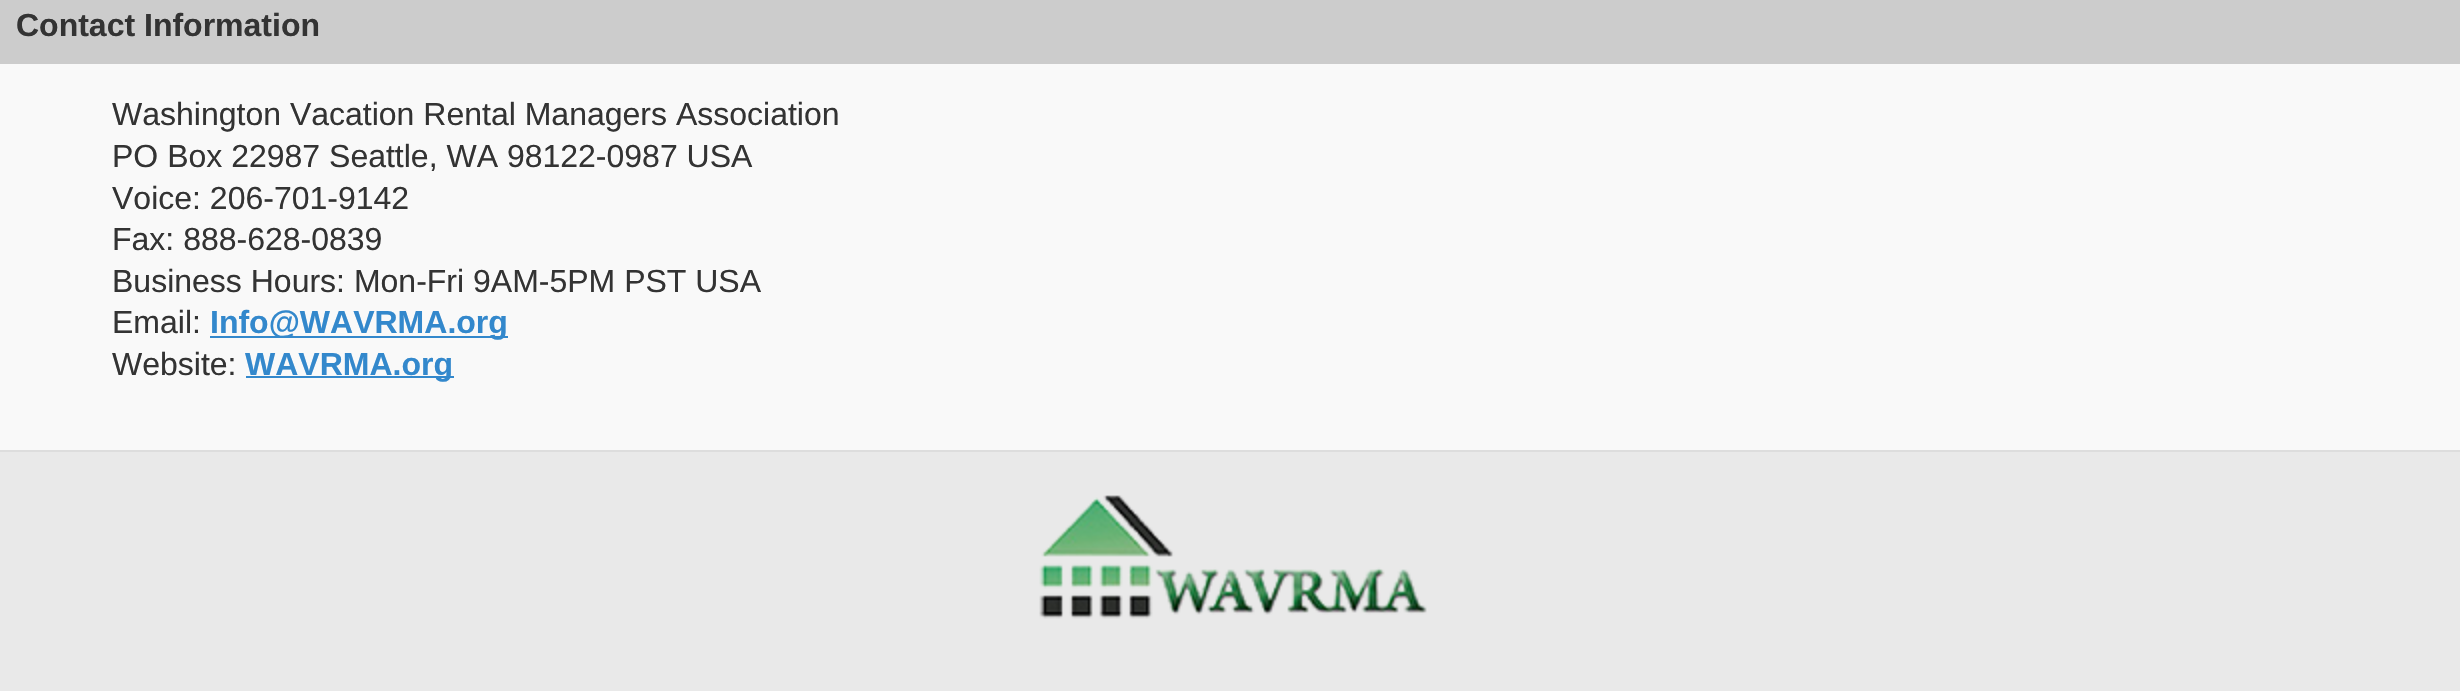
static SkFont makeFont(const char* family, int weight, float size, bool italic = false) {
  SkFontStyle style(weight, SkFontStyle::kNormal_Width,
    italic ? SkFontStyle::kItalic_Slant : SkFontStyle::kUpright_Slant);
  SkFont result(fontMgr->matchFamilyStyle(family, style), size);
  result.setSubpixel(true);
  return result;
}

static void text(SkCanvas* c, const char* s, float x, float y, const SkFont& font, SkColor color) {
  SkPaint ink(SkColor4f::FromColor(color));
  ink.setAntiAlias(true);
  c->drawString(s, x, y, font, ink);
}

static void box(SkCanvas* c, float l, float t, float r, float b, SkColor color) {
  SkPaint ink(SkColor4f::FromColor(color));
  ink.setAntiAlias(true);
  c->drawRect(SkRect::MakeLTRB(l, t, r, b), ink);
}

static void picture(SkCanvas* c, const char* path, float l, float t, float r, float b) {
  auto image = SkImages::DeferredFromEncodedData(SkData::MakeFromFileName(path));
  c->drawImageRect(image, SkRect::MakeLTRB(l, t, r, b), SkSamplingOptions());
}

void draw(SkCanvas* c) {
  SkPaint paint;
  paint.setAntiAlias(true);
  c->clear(0xfff9f9f9);
  box(c, 0, 0, 2460, 64, 0xffcccccc);
  SkFont face1 = makeFont("Liberation Sans", 700, 32);
  text(c, "Contact Information", 16, 36, face1, 0xff333333);
  SkFont face2 = makeFont("Liberation Sans", 400, 32);
  text(c, "Washington Vacation Rental Managers Association", 112, 125, face2, 0xff333333);
  text(c, "PO Box 22987 Seattle, WA 98122-0987 USA", 112, 167, face2, 0xff333333);
  text(c, "Voice: 206-701-9142", 112, 209, face2, 0xff333333);
  text(c, "Fax: 888-628-0839", 112, 250, face2, 0xff333333);
  text(c, "Business Hours: Mon-Fri 9AM-5PM PST USA", 112, 292, face2, 0xff333333);
  text(c, "Email:", 112, 333, face2, 0xff333333);
  box(c, 210, 336, 508, 338, 0xff3388cc);
  text(c, "Info@WAVRMA.org", 210, 333, face1, 0xff3388cc);
  text(c, "Website:", 112, 375, face2, 0xff333333);
  box(c, 246, 376, 454, 378, 0xff3388cc);
  text(c, "WAVRMA.org", 245, 375, face1, 0xff3388cc);
  box(c, 0, 452, 2460, 691, 0xffe9e9e9);
  box(c, 0, 450, 2460, 452, 0xffdddddd);
  picture(c, "img_01.png", 1039, 495, 1427, 619);
}
